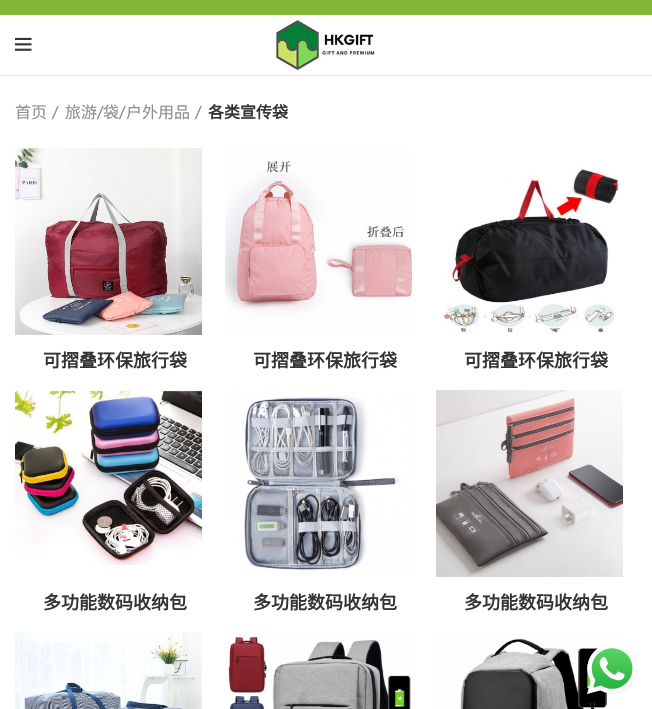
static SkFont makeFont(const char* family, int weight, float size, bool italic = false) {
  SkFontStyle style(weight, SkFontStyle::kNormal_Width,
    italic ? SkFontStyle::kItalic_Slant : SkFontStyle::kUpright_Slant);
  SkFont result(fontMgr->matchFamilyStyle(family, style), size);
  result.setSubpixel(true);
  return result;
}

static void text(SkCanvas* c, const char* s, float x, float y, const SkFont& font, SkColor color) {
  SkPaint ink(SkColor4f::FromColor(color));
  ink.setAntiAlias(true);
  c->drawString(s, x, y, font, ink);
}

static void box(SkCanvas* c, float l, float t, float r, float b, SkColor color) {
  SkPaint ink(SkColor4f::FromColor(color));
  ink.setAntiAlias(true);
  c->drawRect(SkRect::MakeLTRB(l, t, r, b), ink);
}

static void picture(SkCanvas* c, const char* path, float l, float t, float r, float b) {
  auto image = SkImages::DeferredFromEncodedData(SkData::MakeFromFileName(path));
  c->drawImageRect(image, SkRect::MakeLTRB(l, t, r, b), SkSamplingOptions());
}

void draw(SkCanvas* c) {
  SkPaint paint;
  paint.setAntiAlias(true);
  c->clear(0xffffffff);
  box(c, 0, 0, 652, 15, 0xff82b735);
  box(c, 0, 75, 652, 76, 0xffe6e6e6);
  picture(c, "img_01.png", 15, 37, 32, 51);
  picture(c, "img_02.png", 276, 20, 375, 70);
  SkFont face1 = makeFont("Noto Sans CJK SC", 400, 16);
  text(c, "首页", 15, 118, face1, 0xff8e8e8e);
  SkFont face2 = makeFont("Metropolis", 400, 16);
  text(c, "/", 52, 118, face2, 0xff8e8e8e);
  text(c, "旅游", 65, 118, face1, 0xff8e8e8e);
  text(c, "/", 97, 118, face2, 0xff8e8e8e);
  text(c, "袋", 103, 118, face1, 0xff8e8e8e);
  text(c, "/", 119, 118, face2, 0xff8e8e8e);
  text(c, "户外用品", 126, 118, face1, 0xff8e8e8e);
  text(c, "/", 195, 118, face2, 0xff8e8e8e);
  SkFont face3 = makeFont("Noto Sans CJK SC", 700, 16);
  text(c, "各类宣传袋", 208, 118, face3, 0xff333333);
  picture(c, "img_03.png", 15, 148, 202, 335);
  SkFont face4 = makeFont("Noto Sans CJK SC", 700, 18);
  text(c, "可摺叠环保旅行袋", 43, 367, face4, 0xff333333);
  picture(c, "img_04.png", 225, 148, 412, 335);
  text(c, "可摺叠环保旅行袋", 253, 367, face4, 0xff333333);
  picture(c, "img_05.png", 436, 148, 624, 335);
  text(c, "可摺叠环保旅行袋", 464, 367, face4, 0xff333333);
  picture(c, "img_06.png", 15, 390, 202, 577);
  text(c, "多功能数码收纳包", 43, 609, face4, 0xff333333);
  picture(c, "img_07.png", 225, 390, 413, 577);
  text(c, "多功能数码收纳包", 253, 609, face4, 0xff333333);
  picture(c, "img_08.png", 436, 390, 623, 577);
  text(c, "多功能数码收纳包", 464, 609, face4, 0xff333333);
  picture(c, "img_09.png", 15, 632, 202, 709);
  picture(c, "img_10.png", 225, 632, 412, 709);
  picture(c, "img_11.png", 436, 632, 623, 709);
  picture(c, "img_12.png", 587, 644, 637, 694);
}
